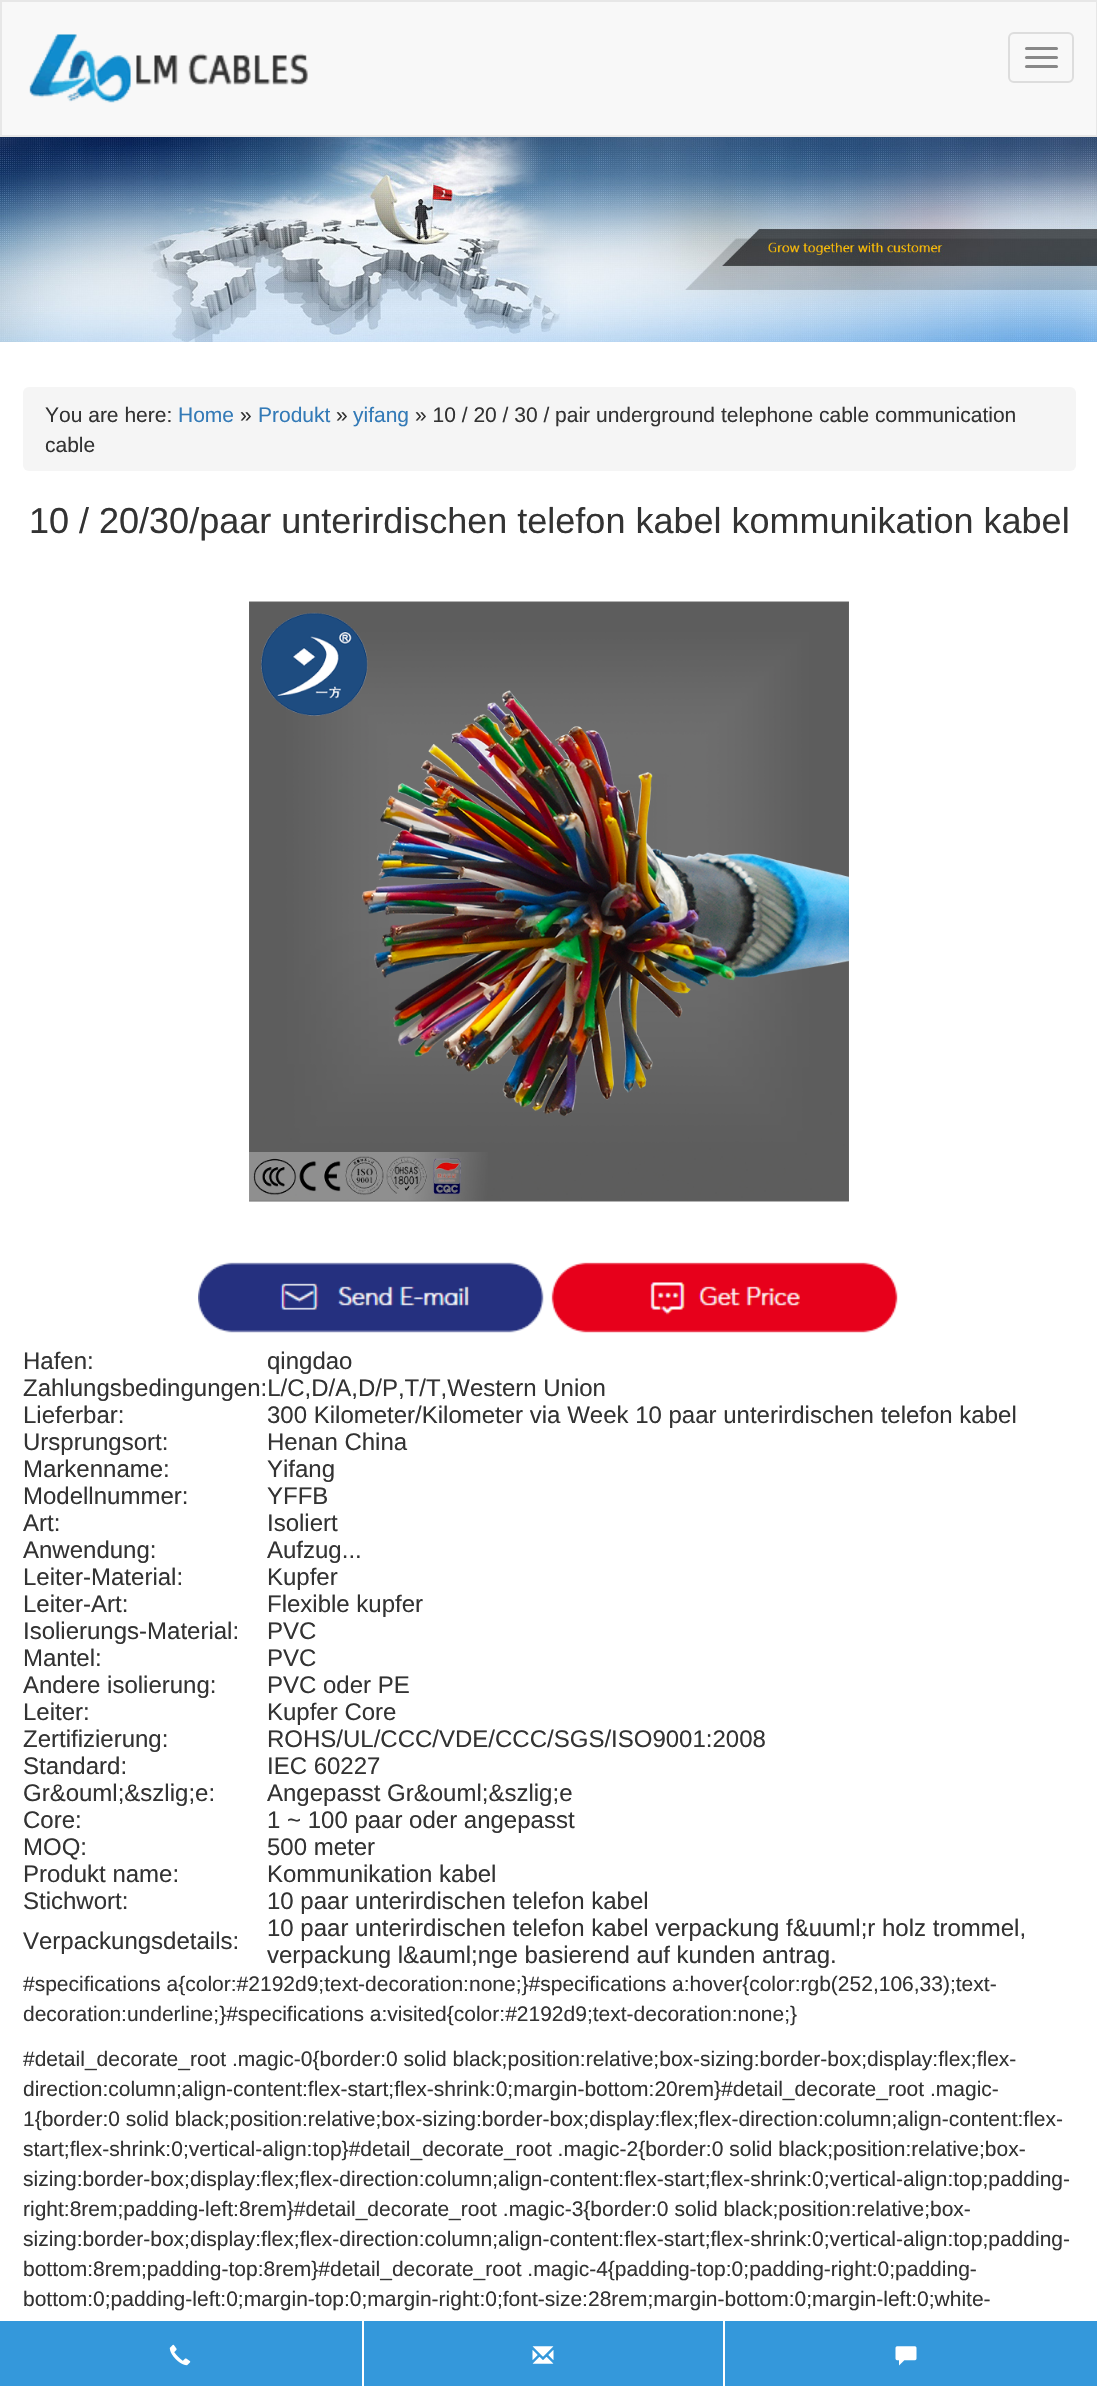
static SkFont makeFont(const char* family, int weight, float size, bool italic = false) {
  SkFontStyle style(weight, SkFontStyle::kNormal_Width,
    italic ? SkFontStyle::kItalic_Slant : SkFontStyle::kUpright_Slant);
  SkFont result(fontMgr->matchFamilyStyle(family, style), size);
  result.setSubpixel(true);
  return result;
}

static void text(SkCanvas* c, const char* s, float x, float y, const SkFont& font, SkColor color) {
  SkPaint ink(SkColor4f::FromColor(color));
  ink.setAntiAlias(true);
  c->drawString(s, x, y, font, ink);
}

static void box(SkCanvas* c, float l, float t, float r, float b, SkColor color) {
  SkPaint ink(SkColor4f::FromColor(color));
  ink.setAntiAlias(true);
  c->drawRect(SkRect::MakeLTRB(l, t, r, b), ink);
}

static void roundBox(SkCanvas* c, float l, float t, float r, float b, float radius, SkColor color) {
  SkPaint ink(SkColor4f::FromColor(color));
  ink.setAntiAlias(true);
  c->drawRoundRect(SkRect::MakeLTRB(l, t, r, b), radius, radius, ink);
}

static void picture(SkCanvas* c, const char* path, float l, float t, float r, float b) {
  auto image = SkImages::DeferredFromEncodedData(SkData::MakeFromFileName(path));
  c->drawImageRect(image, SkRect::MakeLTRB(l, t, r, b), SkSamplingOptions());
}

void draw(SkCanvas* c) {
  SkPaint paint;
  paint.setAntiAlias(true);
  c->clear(0xffffffff);
  paint.setColor(0xfff8f8f8);
  c->drawRect(SkRect::MakeLTRB(1, 1, 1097, 136), paint);
  paint.setStyle(SkPaint::kStroke_Style);
  paint.setStrokeWidth(2);
  paint.setColor(0xffe7e7e7);
  c->drawRect(SkRect::MakeLTRB(1, 1, 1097, 136), paint);
  picture(c, "img_01.png", 29, 34, 308, 103);
  paint.setColor(0xffdddddd);
  c->drawRoundRect(SkRect::MakeLTRB(1009, 33, 1073, 82), 5, 5, paint);
  roundBox(c, 1025, 47, 1058, 50, 1.5f, 0xff888888);
  roundBox(c, 1025, 56, 1058, 59, 1.5f, 0xff888888);
  roundBox(c, 1025, 65, 1058, 68, 1.5f, 0xff888888);
  picture(c, "img_02.png", 0, 137, 1097, 342);
  roundBox(c, 23, 387, 1076, 471, 6, 0xfff5f5f5);
  SkFont face1 = makeFont("Liberation Sans", 400, 21);
  text(c, "You are here:", 45, 422, face1, 0xff333333);
  text(c, "Home", 178, 422, face1, 0xff337ab7);
  text(c, "»", 240, 422, face1, 0xff333333);
  text(c, "Produkt", 258, 422, face1, 0xff337ab7);
  text(c, "»", 336, 422, face1, 0xff333333);
  text(c, "yifang", 353, 422, face1, 0xff337ab7);
  text(c, "» 10 / 20 / 30 / pair underground telephone cable communication", 415, 422, face1, 0xff333333);
  text(c, "cable", 45, 452, face1, 0xff333333);
  SkFont face2 = makeFont("Liberation Sans", 400, 36);
  text(c, "10 / 20/30/paar unterirdischen telefon kabel kommunikation kabel", 29, 533, face2, 0xff333333);
  picture(c, "img_03.png", 249, 601, 849, 1202);
  picture(c, "img_04.png", 198, 1262, 544, 1333);
  picture(c, "img_05.png", 551, 1262, 898, 1333);
  SkFont face3 = makeFont("Liberation Sans", 400, 24);
  text(c, "Hafen:", 23, 1369, face3, 0xff333333);
  text(c, "qingdao", 267, 1369, face3, 0xff333333);
  text(c, "Zahlungsbedingungen:L/C,D/A,D/P,T/T,Western Union", 23, 1396, face3, 0xff333333);
  text(c, "Lieferbar:", 23, 1423, face3, 0xff333333);
  text(c, "300 Kilometer/Kilometer via Week 10 paar unterirdischen telefon kabel", 267, 1423, face3, 0xff333333);
  text(c, "Ursprungsort:", 23, 1450, face3, 0xff333333);
  text(c, "Henan China", 267, 1450, face3, 0xff333333);
  text(c, "Markenname:", 23, 1477, face3, 0xff333333);
  text(c, "Yifang", 267, 1477, face3, 0xff333333);
  text(c, "Modellnummer:", 23, 1504, face3, 0xff333333);
  text(c, "YFFB", 267, 1504, face3, 0xff333333);
  text(c, "Art:", 23, 1531, face3, 0xff333333);
  text(c, "Isoliert", 267, 1531, face3, 0xff333333);
  text(c, "Anwendung:", 23, 1558, face3, 0xff333333);
  text(c, "Aufzug...", 267, 1558, face3, 0xff333333);
  text(c, "Leiter-Material:", 23, 1585, face3, 0xff333333);
  text(c, "Kupfer", 267, 1585, face3, 0xff333333);
  text(c, "Leiter-Art:", 23, 1612, face3, 0xff333333);
  text(c, "Flexible kupfer", 267, 1612, face3, 0xff333333);
  text(c, "Isolierungs-Material:", 23, 1639, face3, 0xff333333);
  text(c, "PVC", 267, 1639, face3, 0xff333333);
  text(c, "Mantel:", 23, 1666, face3, 0xff333333);
  text(c, "PVC", 267, 1666, face3, 0xff333333);
  text(c, "Andere isolierung:", 23, 1693, face3, 0xff333333);
  text(c, "PVC oder PE", 267, 1693, face3, 0xff333333);
  text(c, "Leiter:", 23, 1720, face3, 0xff333333);
  text(c, "Kupfer Core", 267, 1720, face3, 0xff333333);
  text(c, "Zertifizierung:", 23, 1747, face3, 0xff333333);
  text(c, "ROHS/UL/CCC/VDE/CCC/SGS/ISO9001:2008", 267, 1747, face3, 0xff333333);
  text(c, "Standard:", 23, 1774, face3, 0xff333333);
  text(c, "IEC 60227", 267, 1774, face3, 0xff333333);
  text(c, "Gr&ouml;&szlig;e:", 23, 1801, face3, 0xff333333);
  text(c, "Angepasst Gr&ouml;&szlig;e", 267, 1801, face3, 0xff333333);
  text(c, "Core:", 23, 1828, face3, 0xff333333);
  text(c, "1 ~ 100 paar oder angepasst", 267, 1828, face3, 0xff333333);
  text(c, "MOQ:", 23, 1855, face3, 0xff333333);
  text(c, "500 meter", 267, 1855, face3, 0xff333333);
  text(c, "Produkt name:", 23, 1882, face3, 0xff333333);
  text(c, "Kommunikation kabel", 267, 1882, face3, 0xff333333);
  text(c, "Stichwort:", 23, 1909, face3, 0xff333333);
  text(c, "10 paar unterirdischen telefon kabel", 267, 1909, face3, 0xff333333);
  text(c, "Verpackungsdetails:", 23, 1949, face3, 0xff333333);
  text(c, "10 paar unterirdischen telefon kabel verpackung f&uuml;r holz trommel,", 267, 1936, face3, 0xff333333);
  text(c, "verpackung l&auml;nge basierend auf kunden antrag.", 267, 1963, face3, 0xff333333);
  text(c, "#specifications a{color:#2192d9;text-decoration:none;}#specifications a:hover{color:rgb(252,106,33);text-", 23, 1991, face1, 0xff333333);
  text(c, "decoration:underline;}#specifications a:visited{color:#2192d9;text-decoration:none;}", 23, 2021, face1, 0xff333333);
  text(c, "#detail_decorate_root .magic-0{border:0 solid black;position:relative;box-sizing:border-box;display:flex;flex-", 23, 2066, face1, 0xff333333);
  text(c, "direction:column;align-content:flex-start;flex-shrink:0;margin-bottom:20rem}#detail_decorate_root .magic-", 23, 2096, face1, 0xff333333);
  text(c, "1{border:0 solid black;position:relative;box-sizing:border-box;display:flex;flex-direction:column;align-content:flex-", 23, 2126, face1, 0xff333333);
  text(c, "start;flex-shrink:0;vertical-align:top}#detail_decorate_root .magic-2{border:0 solid black;position:relative;box-", 23, 2156, face1, 0xff333333);
  text(c, "sizing:border-box;display:flex;flex-direction:column;align-content:flex-start;flex-shrink:0;vertical-align:top;padding-", 23, 2186, face1, 0xff333333);
  text(c, "right:8rem;padding-left:8rem}#detail_decorate_root .magic-3{border:0 solid black;position:relative;box-", 23, 2216, face1, 0xff333333);
  text(c, "sizing:border-box;display:flex;flex-direction:column;align-content:flex-start;flex-shrink:0;vertical-align:top;padding-", 23, 2246, face1, 0xff333333);
  text(c, "bottom:8rem;padding-top:8rem}#detail_decorate_root .magic-4{padding-top:0;padding-right:0;padding-", 23, 2276, face1, 0xff333333);
  text(c, "bottom:0;padding-left:0;margin-top:0;margin-right:0;font-size:28rem;margin-bottom:0;margin-left:0;white-", 23, 2306, face1, 0xff333333);
  box(c, 0, 2321, 1097, 2386, 0xff3498db);
  box(c, 362, 2321, 364, 2386, 0xffffffff);
  picture(c, "img_06.png", 169, 2344, 191, 2366);
  box(c, 723, 2321, 725, 2386, 0xffffffff);
  picture(c, "img_07.png", 532, 2346, 554, 2364);
  picture(c, "img_08.png", 895, 2346, 917, 2366);
}
